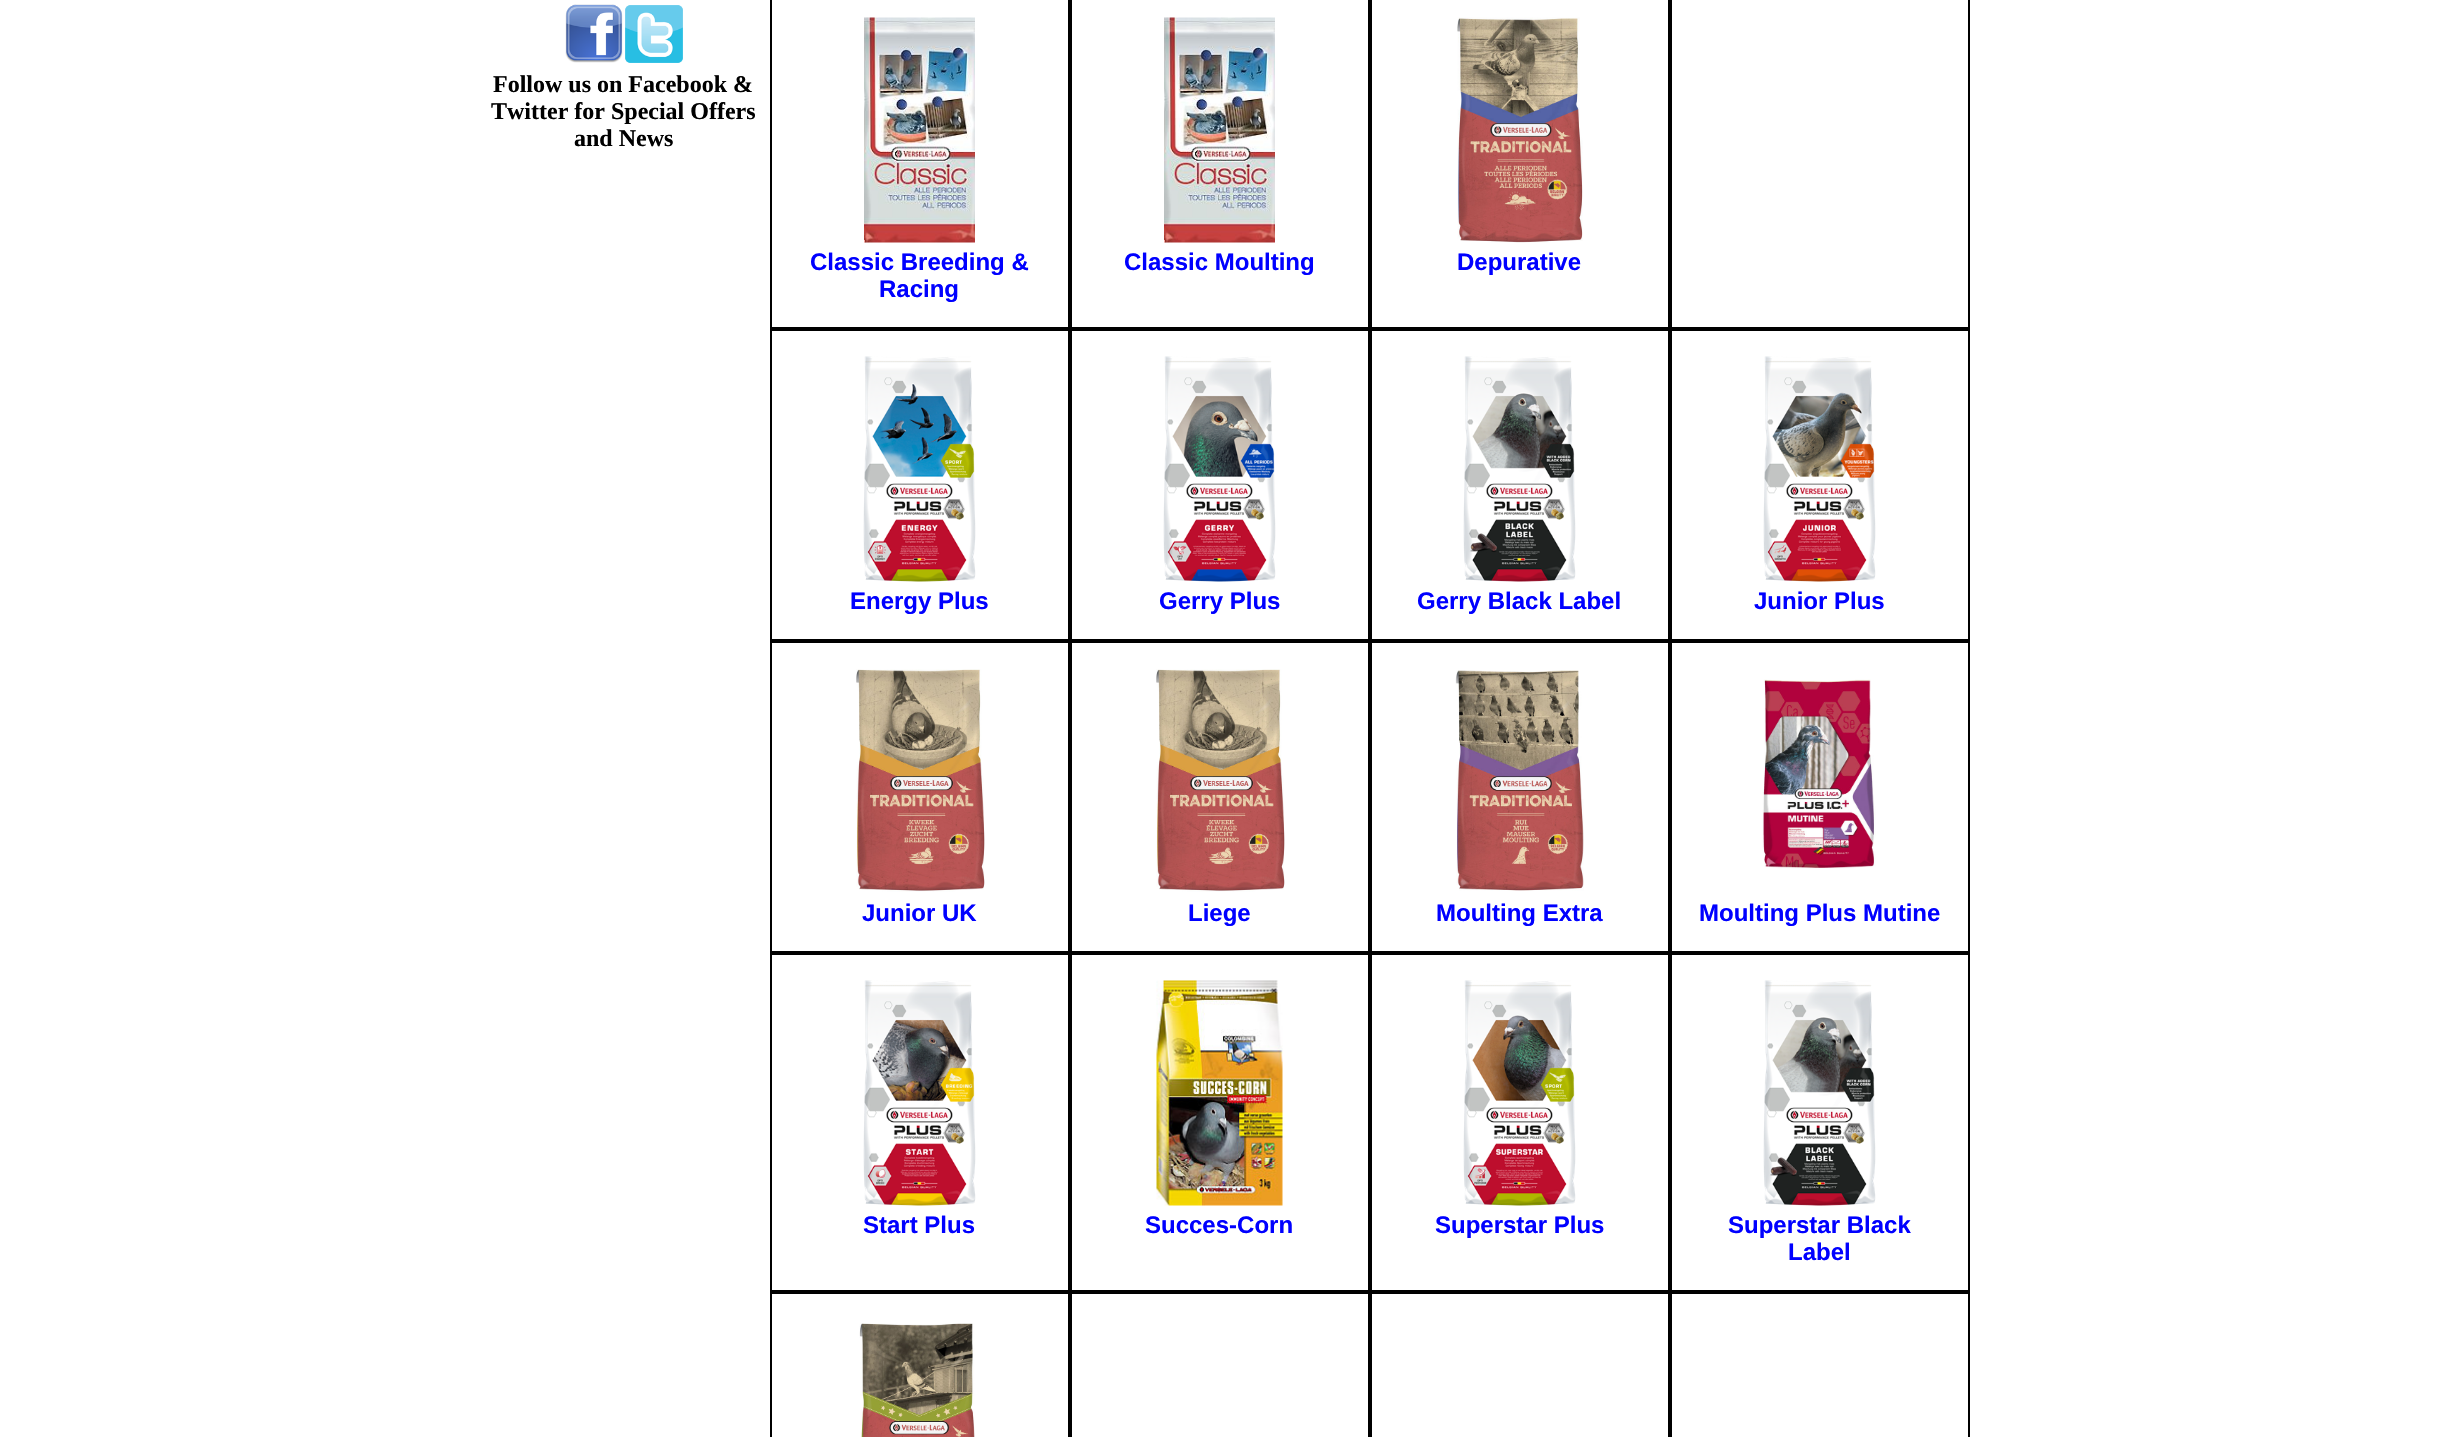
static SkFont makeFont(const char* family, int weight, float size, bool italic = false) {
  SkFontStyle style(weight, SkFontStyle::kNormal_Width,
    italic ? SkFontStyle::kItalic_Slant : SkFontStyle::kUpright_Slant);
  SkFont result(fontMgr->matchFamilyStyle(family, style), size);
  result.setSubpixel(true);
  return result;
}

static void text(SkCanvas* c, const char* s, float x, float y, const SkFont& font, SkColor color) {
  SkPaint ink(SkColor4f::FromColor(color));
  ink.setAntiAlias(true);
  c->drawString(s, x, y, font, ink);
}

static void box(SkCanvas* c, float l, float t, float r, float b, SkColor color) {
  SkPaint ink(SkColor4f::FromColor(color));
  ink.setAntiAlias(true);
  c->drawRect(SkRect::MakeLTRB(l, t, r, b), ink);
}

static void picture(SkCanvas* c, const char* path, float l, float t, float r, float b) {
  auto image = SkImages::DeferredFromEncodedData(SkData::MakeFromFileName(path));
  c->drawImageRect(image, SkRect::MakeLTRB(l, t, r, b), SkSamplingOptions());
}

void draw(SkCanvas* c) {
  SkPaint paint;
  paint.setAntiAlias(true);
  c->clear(0xffffffff);
  picture(c, "img_01.png", 565, 4, 623, 63);
  picture(c, "img_02.png", 625, 5, 683, 63);
  SkFont face1 = makeFont("Liberation Serif", 700, 24);
  text(c, "Follow us on Facebook &", 493, 92, face1, 0xff000000);
  text(c, "Twitter for Special Offers", 491, 119, face1, 0xff000000);
  text(c, "and News", 574, 146, face1, 0xff000000);
  box(c, 1068, 0, 1072, 249, 0xff000000);
  box(c, 770, 0, 772, 249, 0xff000000);
  picture(c, "img_03.png", 864, 17, 975, 243);
  box(c, 1368, 0, 1372, 249, 0xff000000);
  picture(c, "img_03.png", 1164, 17, 1275, 243);
  box(c, 1668, 0, 1672, 249, 0xff000000);
  picture(c, "img_04.png", 1457, 17, 1583, 243);
  box(c, 1968, 0, 1970, 329, 0xff000000);
  box(c, 1068, 249, 1070, 329, 0xff000000);
  box(c, 770, 327, 1070, 331, 0xff000000);
  box(c, 770, 249, 772, 588, 0xff000000);
  SkFont face2 = makeFont("Liberation Sans", 700, 24);
  text(c, "Classic Breeding &", 810, 270, face2, 0xff0000ff);
  text(c, "Racing", 879, 297, face2, 0xff0000ff);
  box(c, 1368, 249, 1370, 329, 0xff000000);
  box(c, 1070, 327, 1370, 331, 0xff000000);
  box(c, 1070, 249, 1072, 329, 0xff000000);
  text(c, "Classic Moulting", 1124, 270, face2, 0xff0000ff);
  box(c, 1668, 249, 1670, 329, 0xff000000);
  box(c, 1370, 327, 1970, 329, 0xff000000);
  box(c, 1370, 249, 1372, 329, 0xff000000);
  text(c, "Depurative", 1457, 270, face2, 0xff0000ff);
  box(c, 1670, 249, 1672, 329, 0xff000000);
  box(c, 1068, 329, 1072, 588, 0xff000000);
  picture(c, "img_05.png", 863, 356, 976, 582);
  box(c, 1368, 329, 1370, 641, 0xff000000);
  picture(c, "img_06.png", 1163, 356, 1276, 582);
  box(c, 1370, 329, 1970, 331, 0xff000000);
  box(c, 1668, 329, 1672, 588, 0xff000000);
  box(c, 1370, 329, 1372, 588, 0xff000000);
  picture(c, "img_07.png", 1463, 356, 1576, 582);
  box(c, 1968, 329, 1970, 641, 0xff000000);
  picture(c, "img_08.png", 1763, 356, 1876, 582);
  box(c, 1068, 588, 1070, 641, 0xff000000);
  box(c, 770, 639, 1370, 641, 0xff000000);
  box(c, 770, 588, 772, 641, 0xff000000);
  text(c, "Energy Plus", 850, 609, face2, 0xff0000ff);
  box(c, 1070, 588, 1072, 641, 0xff000000);
  text(c, "Gerry Plus", 1159, 609, face2, 0xff0000ff);
  box(c, 1668, 588, 1670, 641, 0xff000000);
  box(c, 1370, 639, 1970, 641, 0xff000000);
  box(c, 1370, 588, 1372, 641, 0xff000000);
  text(c, "Gerry Black Label", 1417, 609, face2, 0xff0000ff);
  box(c, 1670, 588, 1672, 641, 0xff000000);
  text(c, "Junior Plus", 1754, 609, face2, 0xff0000ff);
  box(c, 770, 641, 1970, 643, 0xff000000);
  box(c, 1068, 641, 1072, 900, 0xff000000);
  box(c, 770, 641, 772, 900, 0xff000000);
  picture(c, "img_09.png", 856, 669, 985, 892);
  box(c, 1368, 641, 1372, 900, 0xff000000);
  picture(c, "img_09.png", 1156, 669, 1285, 892);
  box(c, 1668, 641, 1672, 900, 0xff000000);
  picture(c, "img_10.png", 1455, 670, 1584, 891);
  box(c, 1968, 641, 1970, 953, 0xff000000);
  picture(c, "img_11.png", 1762, 679, 1876, 869);
  box(c, 1068, 900, 1070, 953, 0xff000000);
  box(c, 770, 951, 1070, 955, 0xff000000);
  box(c, 770, 900, 772, 1212, 0xff000000);
  text(c, "Junior UK", 862, 921, face2, 0xff0000ff);
  box(c, 1368, 900, 1370, 953, 0xff000000);
  box(c, 1070, 951, 1370, 955, 0xff000000);
  box(c, 1070, 900, 1072, 953, 0xff000000);
  text(c, "Liege", 1188, 921, face2, 0xff0000ff);
  box(c, 1668, 900, 1670, 953, 0xff000000);
  box(c, 1370, 951, 1970, 953, 0xff000000);
  box(c, 1370, 900, 1372, 953, 0xff000000);
  text(c, "Moulting Extra", 1436, 921, face2, 0xff0000ff);
  box(c, 1670, 900, 1672, 953, 0xff000000);
  text(c, "Moulting Plus Mutine", 1699, 921, face2, 0xff0000ff);
  box(c, 1068, 953, 1072, 1212, 0xff000000);
  picture(c, "img_12.png", 863, 980, 976, 1206);
  box(c, 1368, 953, 1370, 1292, 0xff000000);
  picture(c, "img_13.png", 1156, 980, 1283, 1206);
  box(c, 1370, 953, 1970, 955, 0xff000000);
  box(c, 1668, 953, 1672, 1212, 0xff000000);
  box(c, 1370, 953, 1372, 1212, 0xff000000);
  picture(c, "img_14.png", 1463, 980, 1576, 1206);
  box(c, 1968, 953, 1970, 1292, 0xff000000);
  picture(c, "img_07.png", 1763, 980, 1876, 1206);
  box(c, 1068, 1212, 1070, 1292, 0xff000000);
  box(c, 770, 1290, 1370, 1292, 0xff000000);
  box(c, 770, 1212, 772, 1292, 0xff000000);
  text(c, "Start Plus", 863, 1233, face2, 0xff0000ff);
  box(c, 1070, 1212, 1072, 1292, 0xff000000);
  text(c, "Succes-Corn", 1145, 1233, face2, 0xff0000ff);
  box(c, 1668, 1212, 1670, 1292, 0xff000000);
  box(c, 1370, 1290, 1970, 1292, 0xff000000);
  box(c, 1370, 1212, 1372, 1292, 0xff000000);
  text(c, "Superstar Plus", 1435, 1233, face2, 0xff0000ff);
  box(c, 1670, 1212, 1672, 1292, 0xff000000);
  text(c, "Superstar Black", 1728, 1233, face2, 0xff0000ff);
  text(c, "Label", 1788, 1260, face2, 0xff0000ff);
  box(c, 770, 1292, 1970, 1294, 0xff000000);
  box(c, 1068, 1292, 1072, 1437, 0xff000000);
  box(c, 770, 1292, 772, 1437, 0xff000000);
  picture(c, "img_15.png", 859, 1323, 975, 1437);
  box(c, 1368, 1292, 1372, 1437, 0xff000000);
  box(c, 1668, 1292, 1672, 1437, 0xff000000);
  box(c, 1968, 1292, 1970, 1437, 0xff000000);
}
